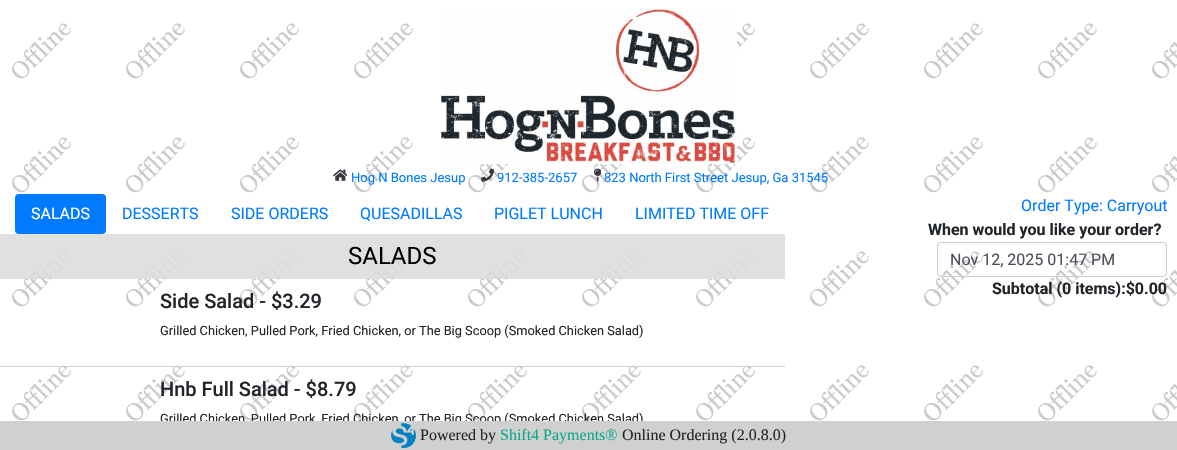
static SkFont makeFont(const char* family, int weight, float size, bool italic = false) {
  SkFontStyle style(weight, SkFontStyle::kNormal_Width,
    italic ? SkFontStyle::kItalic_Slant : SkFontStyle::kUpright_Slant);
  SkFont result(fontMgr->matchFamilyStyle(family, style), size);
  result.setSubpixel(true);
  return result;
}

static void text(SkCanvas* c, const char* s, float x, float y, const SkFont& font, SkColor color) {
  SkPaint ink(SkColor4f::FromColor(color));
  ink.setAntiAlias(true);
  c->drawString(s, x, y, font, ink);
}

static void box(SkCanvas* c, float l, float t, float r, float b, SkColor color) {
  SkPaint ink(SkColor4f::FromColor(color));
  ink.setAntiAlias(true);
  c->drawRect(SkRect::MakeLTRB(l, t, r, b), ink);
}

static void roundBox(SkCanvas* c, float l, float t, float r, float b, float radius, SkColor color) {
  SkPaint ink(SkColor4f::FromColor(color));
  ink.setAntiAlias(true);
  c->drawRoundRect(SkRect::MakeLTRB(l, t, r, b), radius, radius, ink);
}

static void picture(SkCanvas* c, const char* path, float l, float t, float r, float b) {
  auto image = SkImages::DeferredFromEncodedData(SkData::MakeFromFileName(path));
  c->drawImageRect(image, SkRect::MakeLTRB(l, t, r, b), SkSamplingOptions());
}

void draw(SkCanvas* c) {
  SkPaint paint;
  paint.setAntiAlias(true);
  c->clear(0xffffffff);
  picture(c, "img_01.png", 12, 23, 1177, 421);
  picture(c, "img_02.png", 441, 8, 737, 164);
  picture(c, "img_03.png", 333, 169, 347, 181);
  SkFont face1 = makeFont("Roboto", 400, 13);
  text(c, "Hog N Bones Jesup", 351, 182, face1, 0xff007bff);
  picture(c, "img_04.png", 481, 168, 494, 182);
  text(c, "912-385-2657", 497, 182, face1, 0xff007bff);
  picture(c, "img_05.png", 594, 168, 601, 182);
  text(c, "823 North First Street Jesup, Ga 31545", 604, 182, face1, 0xff007bff);
  roundBox(c, 15, 194, 106, 234, 4, 0xff007bff);
  SkFont face2 = makeFont("Roboto", 400, 16);
  text(c, "SALADS", 31, 219, face2, 0xffffffff);
  text(c, "DESSERTS", 122, 219, face2, 0xff007bff);
  text(c, "SIDE ORDERS", 231, 219, face2, 0xff007bff);
  text(c, "QUESADILLAS", 360, 219, face2, 0xff007bff);
  text(c, "PIGLET LUNCH", 494, 219, face2, 0xff007bff);
  text(c, "LIMITED TIME OFF", 635, 219, face2, 0xff007bff);
  box(c, 0, 234, 785, 279, 0xe0dcdcdc);
  SkFont face3 = makeFont("Roboto", 400, 24);
  text(c, "SALADS", 348, 264, face3, 0xff000000);
  box(c, 0, 366, 785, 367, 0xffd0d0d0);
  SkFont face4 = makeFont("Roboto", 500, 20);
  text(c, "Side Salad - $3.29", 160, 308, face4, 0xff212529);
  SkFont face5 = makeFont("Roboto", 400, 12.8f);
  text(c, "Grilled Chicken, Pulled Pork, Fried Chicken, or The Big Scoop (Smoked Chicken Salad)", 160, 335, face5, 0xff212529);
  text(c, "Hnb Full Salad - $8.79", 160, 396, face4, 0xff212529);
  c->save();
  c->clipRect(SkRect::MakeLTRB(160, 409, 770, 421));
  text(c, "Grilled Chicken, Pulled Pork, Fried Chicken, or The Big Scoop (Smoked Chicken Salad)", 160, 423, face5, 0xff212529);
  c->restore();
  text(c, "Order Type: Carryout", 1021, 211, face2, 0xff007bff);
  SkFont face6 = makeFont("Roboto", 700, 16);
  text(c, "When would you like your order?", 928, 235, face6, 0xff212529);
  paint.setStyle(SkPaint::kStroke_Style);
  paint.setStrokeWidth(1);
  paint.setColor(0xffcccccc);
  c->drawRoundRect(SkRect::MakeLTRB(937.5f, 242.5f, 1166.5f, 276.5f), 3.5f, 3.5f, paint);
  text(c, "Nov 12, 2025 01:47 PM", 950, 265, face2, 0xff495057);
  text(c, "Subtotal (0 items):$0.00", 992, 294, face6, 0xff212529);
  box(c, 0, 421, 1177, 450, 0xffd0d0d0);
  picture(c, "img_06.png", 391, 423, 416, 448);
  SkFont face7 = makeFont("Liberation Serif", 400, 16);
  text(c, "Powered by", 420, 440, face7, 0xff212529);
  text(c, "Shift4 Payments®", 500, 440, face7, 0xff0da88e);
  text(c, "Online Ordering (2.0.8.0)", 622, 440, face7, 0xff212529);
}
